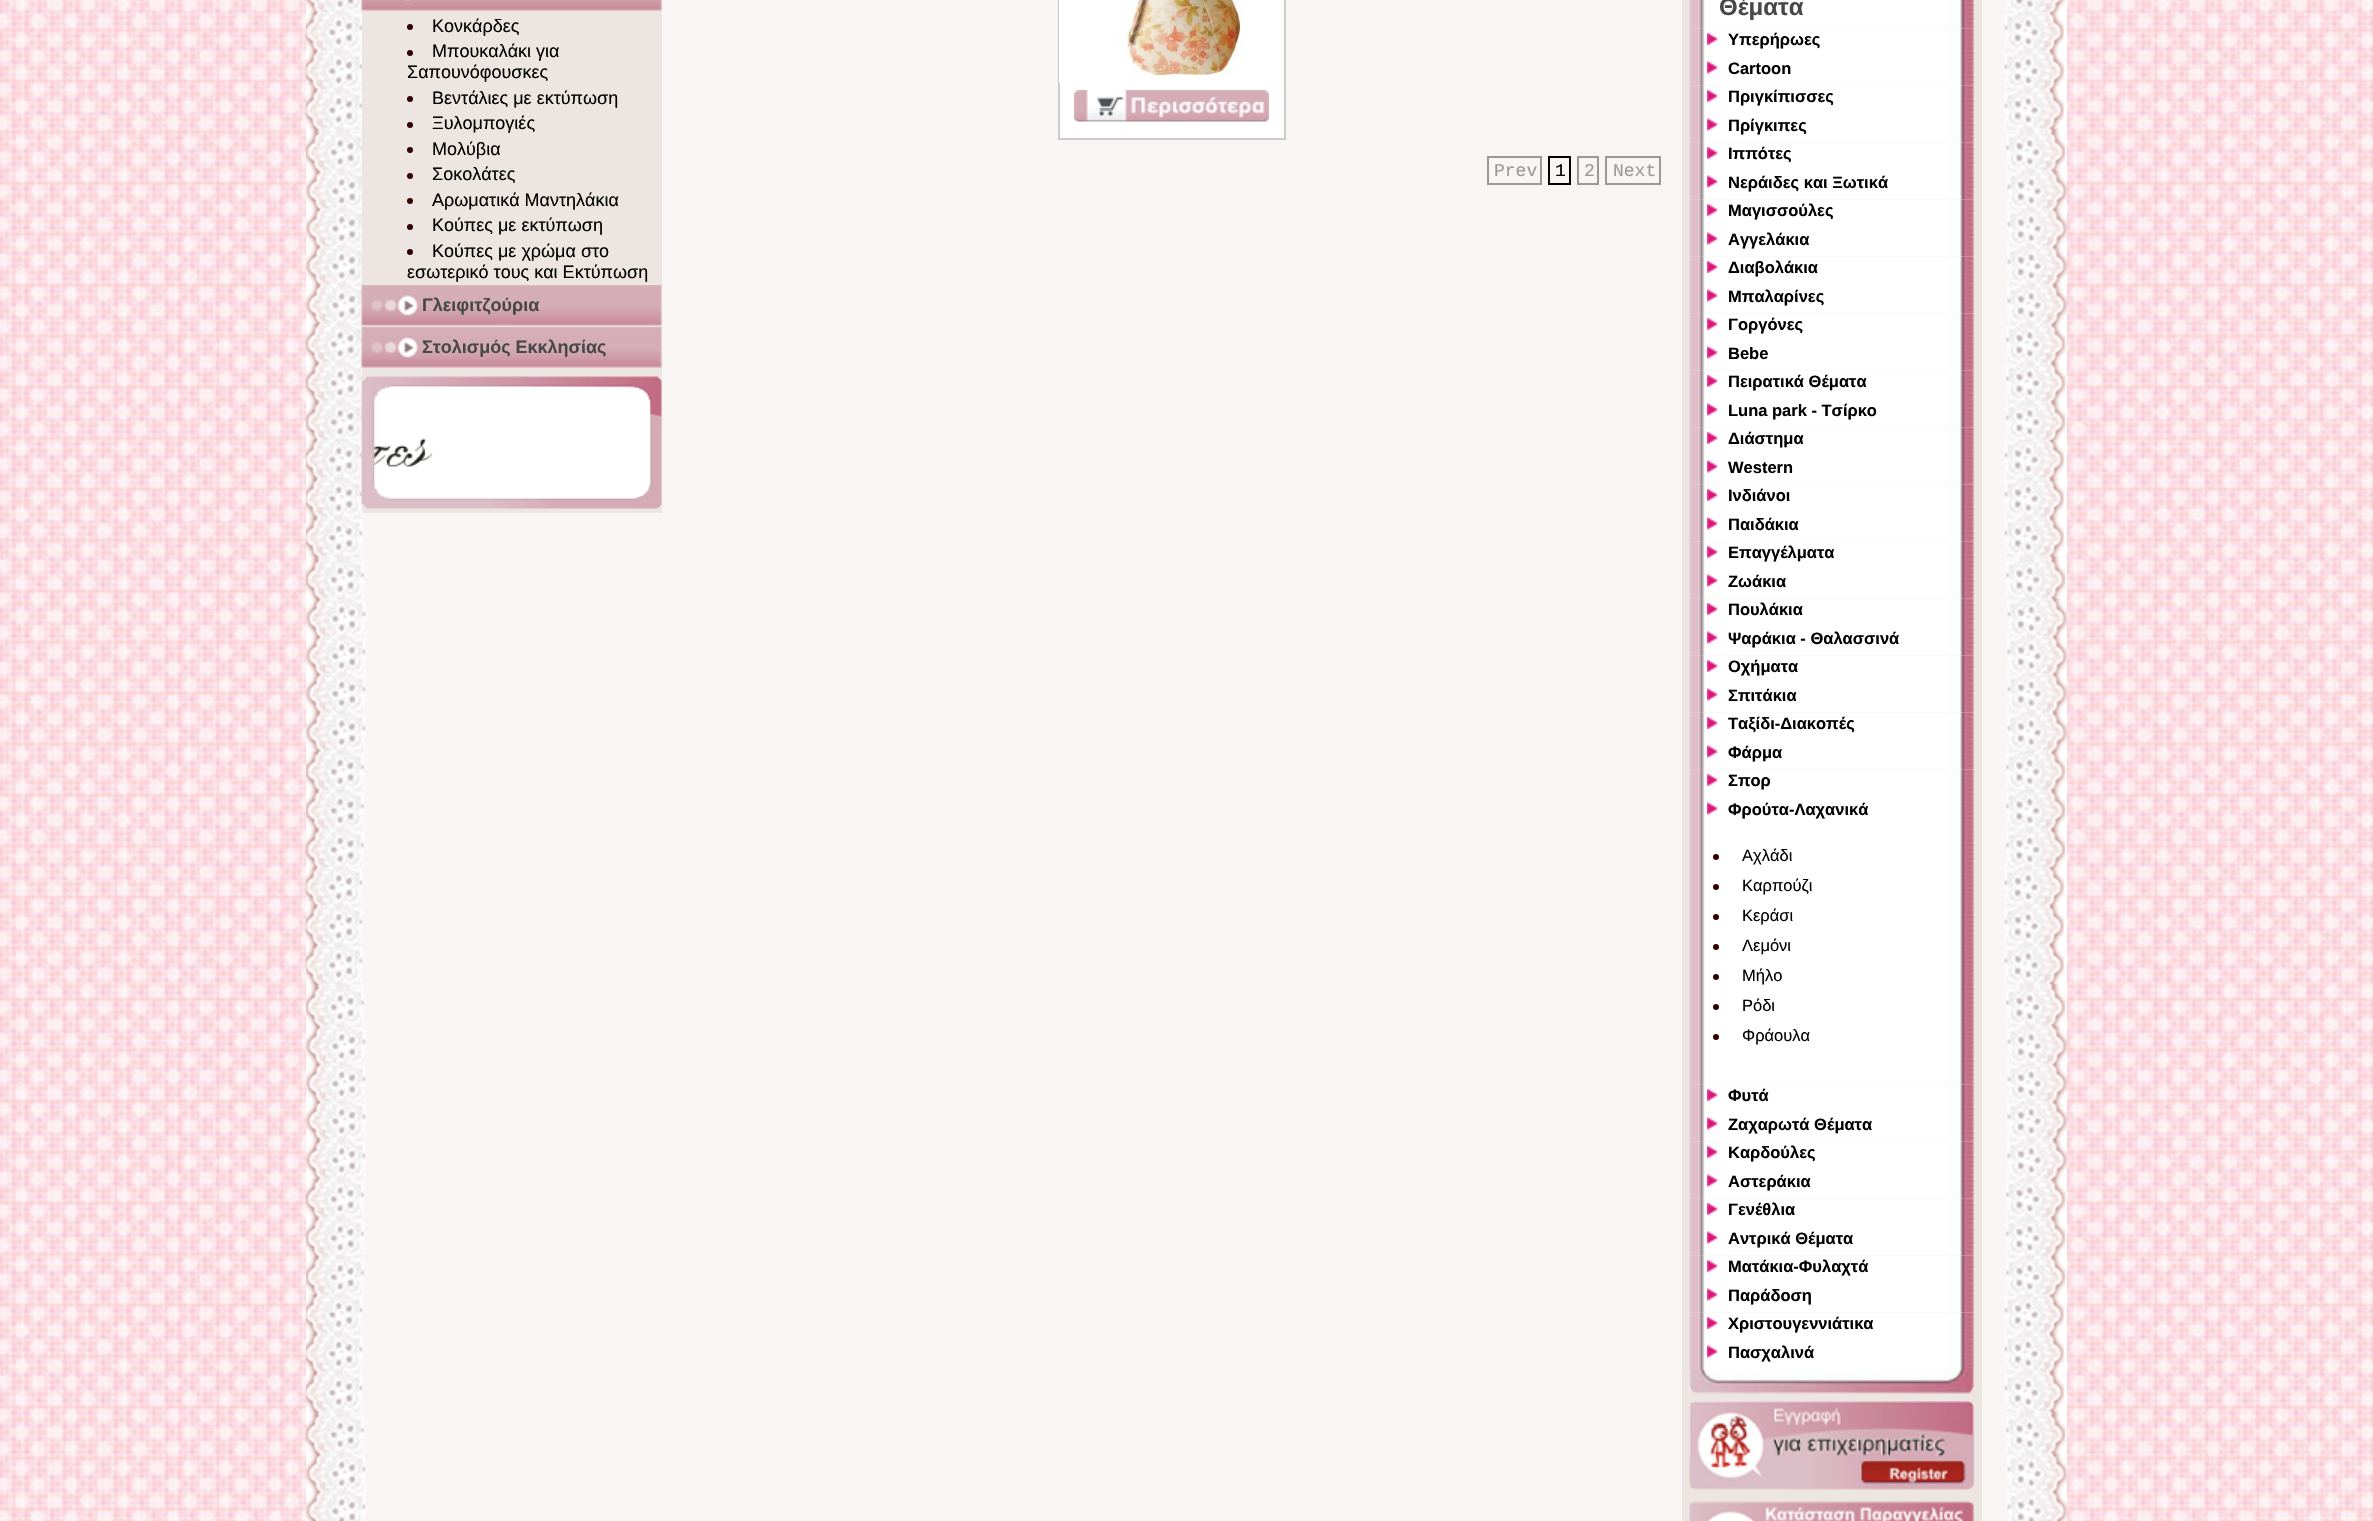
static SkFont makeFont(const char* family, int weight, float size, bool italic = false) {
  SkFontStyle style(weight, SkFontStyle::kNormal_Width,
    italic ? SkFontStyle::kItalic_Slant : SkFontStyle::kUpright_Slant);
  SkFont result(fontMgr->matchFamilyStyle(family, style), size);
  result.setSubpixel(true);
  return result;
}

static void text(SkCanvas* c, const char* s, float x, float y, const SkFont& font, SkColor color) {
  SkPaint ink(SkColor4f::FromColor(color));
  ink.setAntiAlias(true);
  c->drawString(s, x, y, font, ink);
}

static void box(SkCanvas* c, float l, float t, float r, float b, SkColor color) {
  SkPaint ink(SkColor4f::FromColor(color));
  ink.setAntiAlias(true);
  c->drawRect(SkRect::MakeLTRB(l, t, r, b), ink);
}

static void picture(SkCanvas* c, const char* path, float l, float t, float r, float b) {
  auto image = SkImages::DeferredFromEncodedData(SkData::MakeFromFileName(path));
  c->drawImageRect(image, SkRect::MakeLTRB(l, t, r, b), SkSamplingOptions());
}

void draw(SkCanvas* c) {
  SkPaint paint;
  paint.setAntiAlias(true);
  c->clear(0xffffffff);
  picture(c, "img_01.png", 0, 0, 2373, 1521);
  picture(c, "img_02.png", 306, 0, 2067, 1521);
  box(c, 362, 0, 662, 513, 0xffece5e1);
  picture(c, "img_03.png", 361, 0, 662, 11);
  paint.setColor(0xff330000);
  c->drawCircle(410, 27, 3, paint);
  SkFont face1 = makeFont("Liberation Sans", 400, 18);
  text(c, "Κονκάρδες", 432, 32, face1, 0xff000000);
  c->drawCircle(410, 53, 3, paint);
  text(c, "Μπουκαλάκι για", 432, 57, face1, 0xff000000);
  text(c, "Σαπουνόφουσκες", 407, 78, face1, 0xff000000);
  c->drawCircle(410, 99, 3, paint);
  text(c, "Βεντάλιες με εκτύπωση", 432, 104, face1, 0xff000000);
  c->drawCircle(410, 125, 3, paint);
  text(c, "Ξυλομπογιές", 432, 129, face1, 0xff000000);
  c->drawCircle(410, 150, 3, paint);
  text(c, "Μολύβια", 432, 155, face1, 0xff000000);
  c->drawCircle(410, 176, 3, paint);
  text(c, "Σοκολάτες", 432, 180, face1, 0xff000000);
  c->drawCircle(410, 201, 3, paint);
  text(c, "Αρωματικά Μαντηλάκια", 432, 206, face1, 0xff000000);
  c->drawCircle(410, 227, 3, paint);
  text(c, "Κούπες με εκτύπωση", 432, 231, face1, 0xff000000);
  c->drawCircle(410, 252, 3, paint);
  text(c, "Κούπες με χρώμα στο", 432, 257, face1, 0xff000000);
  text(c, "εσωτερικό τους και Εκτύπωση", 407, 278, face1, 0xff000000);
  picture(c, "img_04.png", 361, 285, 662, 326);
  SkFont face2 = makeFont("Liberation Sans", 700, 18);
  text(c, "Γλειφιτζούρια", 422, 311, face2, 0xff484848);
  picture(c, "img_05.png", 361, 327, 662, 368);
  text(c, "Στολισμός Εκκλησίας", 422, 353, face2, 0xff484848);
  picture(c, "img_06.png", 361, 376, 662, 509);
  paint.setColor(0xffffffff);
  c->drawRect(SkRect::MakeLTRB(1059, -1, 1285, 139), paint);
  paint.setStyle(SkPaint::kStroke_Style);
  paint.setStrokeWidth(2);
  paint.setColor(0xffcccccc);
  c->drawRect(SkRect::MakeLTRB(1059, -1, 1285, 139), paint);
  box(c, 1059, 0, 1060, 83, 0xffffffff);
  picture(c, "img_07.png", 1116, 0, 1242, 75);
  picture(c, "img_08.png", 1074, 90, 1269, 122);
  paint.setColor(0xff999999);
  c->drawRect(SkRect::MakeLTRB(1488, 157, 1541, 184), paint);
  SkFont face3 = makeFont("Liberation Mono", 400, 18);
  text(c, "Prev", 1494, 176, face3, 0xff999999);
  paint.setColor(0xff000000);
  c->drawRect(SkRect::MakeLTRB(1549, 157, 1570, 184), paint);
  text(c, "1", 1555, 176, face3, 0xff000000);
  paint.setColor(0xff999999);
  c->drawRect(SkRect::MakeLTRB(1578, 157, 1598, 184), paint);
  text(c, "2", 1584, 176, face3, 0xff999999);
  c->drawRect(SkRect::MakeLTRB(1606, 157, 1660, 184), paint);
  text(c, "Next", 1613, 176, face3, 0xff999999);
  box(c, 1682, 0, 1982, 1521, 0xffece5e1);
  picture(c, "img_09.png", 1689, 1369, 1974, 1394);
  picture(c, "img_10.png", 1689, 0, 1974, 29);
  SkFont face4 = makeFont("Liberation Sans", 700, 24);
  text(c, "Θέματα", 1719, 15, face4, 0xff484848);
  picture(c, "img_11.png", 1689, 28, 1974, 57);
  picture(c, "img_12.png", 1707, 33, 1718, 45);
  SkFont face5 = makeFont("Liberation Sans", 700, 16.5f);
  text(c, "Υπερήρωες", 1728, 45, face5, 0xff000000);
  picture(c, "img_13.png", 1689, 57, 1974, 86);
  picture(c, "img_14.png", 1707, 61, 1718, 74);
  text(c, "Cartoon", 1728, 74, face5, 0xff000000);
  picture(c, "img_15.png", 1689, 85, 1974, 114);
  picture(c, "img_12.png", 1707, 90, 1718, 102);
  text(c, "Πριγκίπισσες", 1728, 102, face5, 0xff000000);
  picture(c, "img_16.png", 1689, 114, 1974, 143);
  picture(c, "img_14.png", 1707, 118, 1718, 131);
  text(c, "Πρίγκιπες", 1728, 131, face5, 0xff000000);
  picture(c, "img_17.png", 1689, 142, 1974, 171);
  picture(c, "img_12.png", 1707, 147, 1718, 159);
  text(c, "Ιππότες", 1728, 159, face5, 0xff000000);
  picture(c, "img_18.png", 1689, 171, 1974, 200);
  picture(c, "img_14.png", 1707, 175, 1718, 188);
  text(c, "Νεράιδες και Ξωτικά", 1728, 188, face5, 0xff000000);
  picture(c, "img_19.png", 1689, 199, 1974, 228);
  picture(c, "img_12.png", 1707, 204, 1718, 216);
  text(c, "Μαγισσούλες", 1728, 216, face5, 0xff000000);
  picture(c, "img_20.png", 1689, 228, 1974, 257);
  picture(c, "img_14.png", 1707, 232, 1718, 245);
  text(c, "Αγγελάκια", 1728, 245, face5, 0xff000000);
  picture(c, "img_21.png", 1689, 256, 1974, 285);
  picture(c, "img_12.png", 1707, 261, 1718, 273);
  text(c, "Διαβολάκια", 1728, 273, face5, 0xff000000);
  picture(c, "img_22.png", 1689, 285, 1974, 314);
  picture(c, "img_14.png", 1707, 289, 1718, 302);
  text(c, "Μπαλαρίνες", 1728, 302, face5, 0xff000000);
  picture(c, "img_23.png", 1689, 313, 1974, 342);
  picture(c, "img_12.png", 1707, 318, 1718, 330);
  text(c, "Γοργόνες", 1728, 330, face5, 0xff000000);
  picture(c, "img_24.png", 1689, 342, 1974, 371);
  picture(c, "img_14.png", 1707, 346, 1718, 359);
  text(c, "Bebe", 1728, 359, face5, 0xff000000);
  picture(c, "img_25.png", 1689, 370, 1974, 399);
  picture(c, "img_12.png", 1707, 375, 1718, 387);
  text(c, "Πειρατικά Θέματα", 1728, 387, face5, 0xff000000);
  picture(c, "img_26.png", 1689, 399, 1974, 428);
  picture(c, "img_14.png", 1707, 403, 1718, 416);
  text(c, "Luna park - Τσίρκο", 1728, 416, face5, 0xff000000);
  picture(c, "img_27.png", 1689, 427, 1974, 456);
  picture(c, "img_12.png", 1707, 432, 1718, 444);
  text(c, "Διάστημα", 1728, 444, face5, 0xff000000);
  picture(c, "img_28.png", 1689, 456, 1974, 485);
  picture(c, "img_14.png", 1707, 460, 1718, 473);
  text(c, "Western", 1728, 473, face5, 0xff000000);
  picture(c, "img_29.png", 1689, 484, 1974, 513);
  picture(c, "img_12.png", 1707, 489, 1718, 501);
  text(c, "Ινδιάνοι", 1728, 501, face5, 0xff000000);
  picture(c, "img_30.png", 1689, 513, 1974, 542);
  picture(c, "img_14.png", 1707, 517, 1718, 530);
  text(c, "Παιδάκια", 1728, 530, face5, 0xff000000);
  picture(c, "img_31.png", 1689, 541, 1974, 570);
  picture(c, "img_12.png", 1707, 546, 1718, 558);
  text(c, "Επαγγέλματα", 1728, 558, face5, 0xff000000);
  picture(c, "img_32.png", 1689, 570, 1974, 599);
  picture(c, "img_14.png", 1707, 574, 1718, 587);
  text(c, "Ζωάκια", 1728, 587, face5, 0xff000000);
  picture(c, "img_33.png", 1689, 598, 1974, 627);
  picture(c, "img_12.png", 1707, 603, 1718, 615);
  text(c, "Πουλάκια", 1728, 615, face5, 0xff000000);
  picture(c, "img_34.png", 1689, 627, 1974, 656);
  picture(c, "img_14.png", 1707, 631, 1718, 644);
  text(c, "Ψαράκια - Θαλασσινά", 1728, 644, face5, 0xff000000);
  picture(c, "img_35.png", 1689, 655, 1974, 684);
  picture(c, "img_12.png", 1707, 660, 1718, 672);
  text(c, "Οχήματα", 1728, 672, face5, 0xff000000);
  picture(c, "img_36.png", 1689, 684, 1974, 713);
  picture(c, "img_14.png", 1707, 688, 1718, 701);
  text(c, "Σπιτάκια", 1728, 701, face5, 0xff000000);
  picture(c, "img_37.png", 1689, 712, 1974, 741);
  picture(c, "img_12.png", 1707, 717, 1718, 729);
  text(c, "Ταξίδι-Διακοπές", 1728, 729, face5, 0xff000000);
  picture(c, "img_38.png", 1689, 741, 1974, 770);
  picture(c, "img_14.png", 1707, 745, 1718, 758);
  text(c, "Φάρμα", 1728, 758, face5, 0xff000000);
  picture(c, "img_39.png", 1689, 769, 1974, 798);
  picture(c, "img_12.png", 1707, 774, 1718, 786);
  text(c, "Σπορ", 1728, 786, face5, 0xff000000);
  picture(c, "img_40.png", 1689, 798, 1974, 1085);
  picture(c, "img_14.png", 1707, 802, 1718, 815);
  text(c, "Φρούτα-Λαχανικά", 1728, 815, face5, 0xff000000);
  paint.setStyle(SkPaint::kFill_Style);
  paint.setColor(0xff330000);
  c->drawCircle(1716, 857, 3, paint);
  SkFont face6 = makeFont("Liberation Sans", 400, 16.5f);
  text(c, "Αχλάδι", 1742, 861, face6, 0xff000000);
  c->drawCircle(1716, 887, 3, paint);
  text(c, "Καρπούζι", 1742, 891, face6, 0xff000000);
  c->drawCircle(1716, 917, 3, paint);
  text(c, "Κεράσι", 1742, 921, face6, 0xff000000);
  c->drawCircle(1716, 947, 3, paint);
  text(c, "Λεμόνι", 1742, 951, face6, 0xff000000);
  c->drawCircle(1716, 977, 3, paint);
  text(c, "Μήλο", 1742, 981, face6, 0xff000000);
  c->drawCircle(1716, 1007, 3, paint);
  text(c, "Ρόδι", 1742, 1011, face6, 0xff000000);
  c->drawCircle(1716, 1037, 3, paint);
  text(c, "Φράουλα", 1742, 1041, face6, 0xff000000);
  picture(c, "img_41.png", 1689, 1084, 1974, 1113);
  picture(c, "img_12.png", 1707, 1089, 1718, 1101);
  text(c, "Φυτά", 1728, 1101, face5, 0xff000000);
  picture(c, "img_26.png", 1689, 1113, 1974, 1142);
  picture(c, "img_14.png", 1707, 1117, 1718, 1130);
  text(c, "Ζαχαρωτά Θέματα", 1728, 1130, face5, 0xff000000);
  picture(c, "img_42.png", 1689, 1141, 1974, 1170);
  picture(c, "img_12.png", 1707, 1146, 1718, 1158);
  text(c, "Καρδούλες", 1728, 1158, face5, 0xff000000);
  picture(c, "img_43.png", 1689, 1170, 1974, 1199);
  picture(c, "img_14.png", 1707, 1174, 1718, 1187);
  text(c, "Αστεράκια", 1728, 1187, face5, 0xff000000);
  picture(c, "img_44.png", 1689, 1198, 1974, 1227);
  picture(c, "img_12.png", 1707, 1203, 1718, 1215);
  text(c, "Γενέθλια", 1728, 1215, face5, 0xff000000);
  picture(c, "img_45.png", 1689, 1227, 1974, 1256);
  picture(c, "img_14.png", 1707, 1231, 1718, 1244);
  text(c, "Αντρικά Θέματα", 1728, 1244, face5, 0xff000000);
  picture(c, "img_46.png", 1689, 1255, 1974, 1284);
  picture(c, "img_12.png", 1707, 1260, 1718, 1272);
  text(c, "Ματάκια-Φυλαχτά", 1728, 1272, face5, 0xff000000);
  picture(c, "img_47.png", 1689, 1284, 1974, 1313);
  picture(c, "img_14.png", 1707, 1288, 1718, 1301);
  text(c, "Παράδοση", 1728, 1301, face5, 0xff000000);
  picture(c, "img_48.png", 1689, 1312, 1974, 1341);
  picture(c, "img_12.png", 1707, 1317, 1718, 1329);
  text(c, "Χριστουγεννιάτικα", 1728, 1329, face5, 0xff000000);
  picture(c, "img_49.png", 1689, 1341, 1974, 1370);
  picture(c, "img_14.png", 1707, 1345, 1718, 1358);
  text(c, "Πασχαλινά", 1728, 1358, face5, 0xff000000);
  picture(c, "img_50.png", 1689, 1401, 1974, 1490);
  picture(c, "img_51.png", 1689, 1501, 1974, 1521);
}
